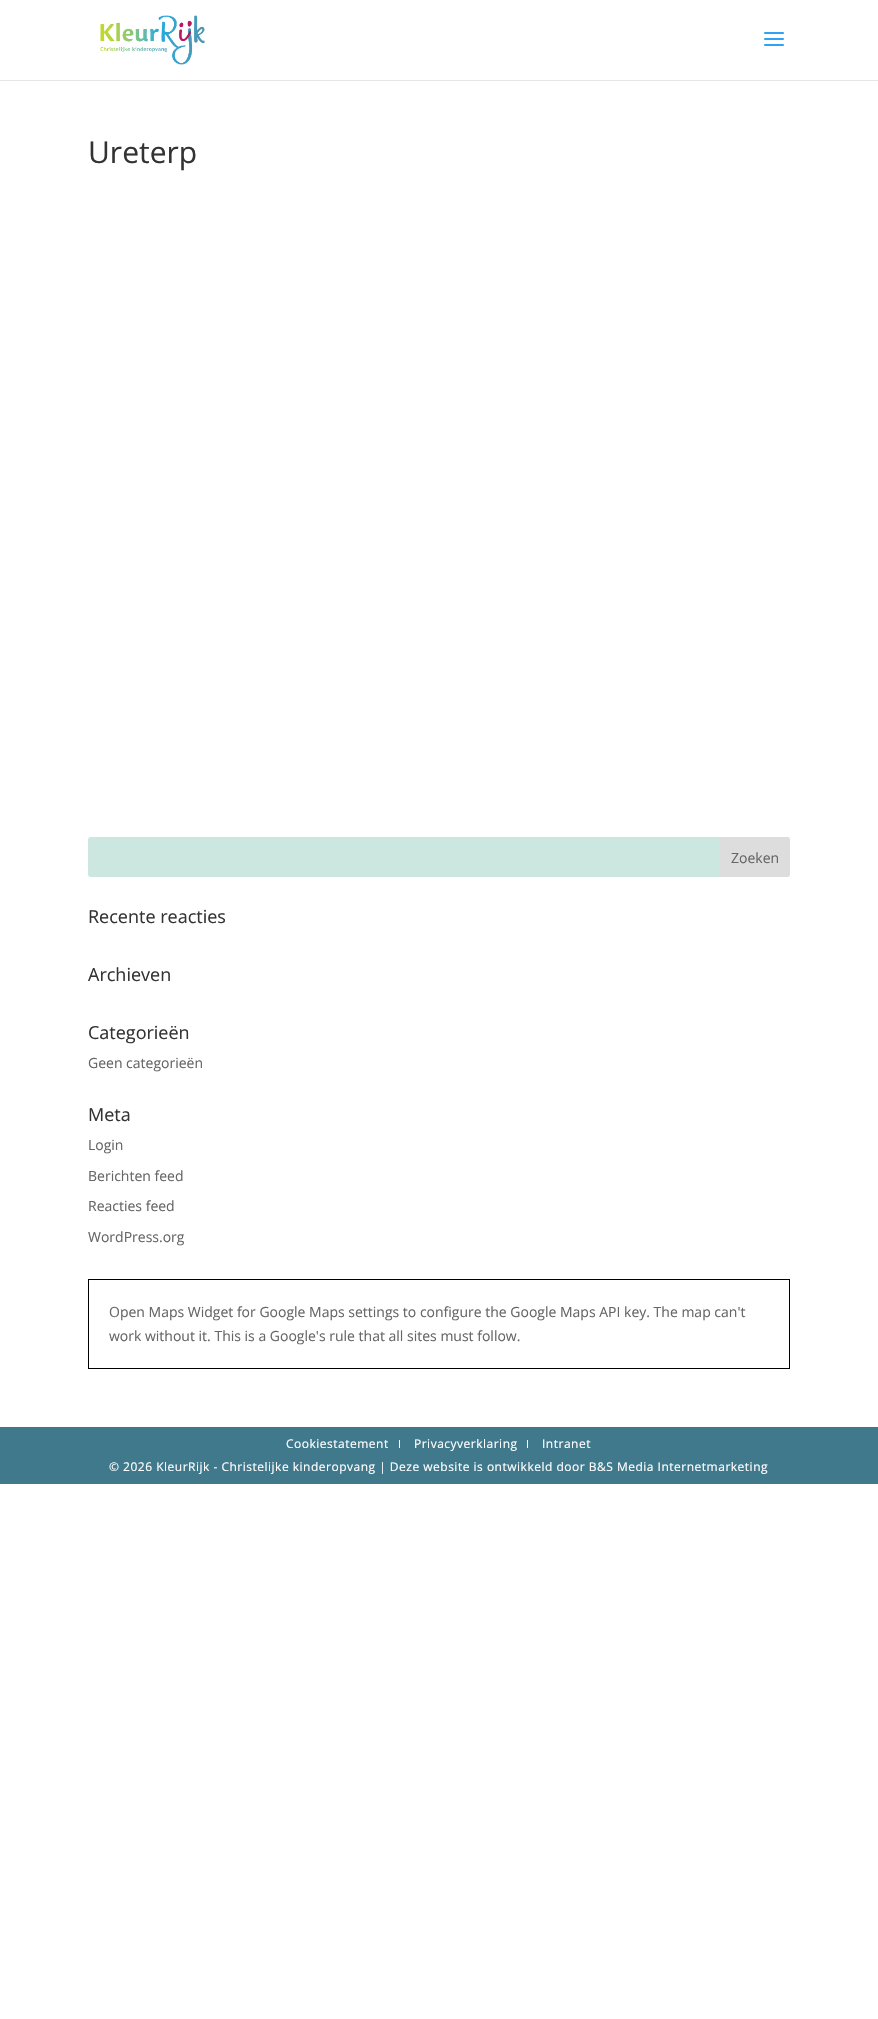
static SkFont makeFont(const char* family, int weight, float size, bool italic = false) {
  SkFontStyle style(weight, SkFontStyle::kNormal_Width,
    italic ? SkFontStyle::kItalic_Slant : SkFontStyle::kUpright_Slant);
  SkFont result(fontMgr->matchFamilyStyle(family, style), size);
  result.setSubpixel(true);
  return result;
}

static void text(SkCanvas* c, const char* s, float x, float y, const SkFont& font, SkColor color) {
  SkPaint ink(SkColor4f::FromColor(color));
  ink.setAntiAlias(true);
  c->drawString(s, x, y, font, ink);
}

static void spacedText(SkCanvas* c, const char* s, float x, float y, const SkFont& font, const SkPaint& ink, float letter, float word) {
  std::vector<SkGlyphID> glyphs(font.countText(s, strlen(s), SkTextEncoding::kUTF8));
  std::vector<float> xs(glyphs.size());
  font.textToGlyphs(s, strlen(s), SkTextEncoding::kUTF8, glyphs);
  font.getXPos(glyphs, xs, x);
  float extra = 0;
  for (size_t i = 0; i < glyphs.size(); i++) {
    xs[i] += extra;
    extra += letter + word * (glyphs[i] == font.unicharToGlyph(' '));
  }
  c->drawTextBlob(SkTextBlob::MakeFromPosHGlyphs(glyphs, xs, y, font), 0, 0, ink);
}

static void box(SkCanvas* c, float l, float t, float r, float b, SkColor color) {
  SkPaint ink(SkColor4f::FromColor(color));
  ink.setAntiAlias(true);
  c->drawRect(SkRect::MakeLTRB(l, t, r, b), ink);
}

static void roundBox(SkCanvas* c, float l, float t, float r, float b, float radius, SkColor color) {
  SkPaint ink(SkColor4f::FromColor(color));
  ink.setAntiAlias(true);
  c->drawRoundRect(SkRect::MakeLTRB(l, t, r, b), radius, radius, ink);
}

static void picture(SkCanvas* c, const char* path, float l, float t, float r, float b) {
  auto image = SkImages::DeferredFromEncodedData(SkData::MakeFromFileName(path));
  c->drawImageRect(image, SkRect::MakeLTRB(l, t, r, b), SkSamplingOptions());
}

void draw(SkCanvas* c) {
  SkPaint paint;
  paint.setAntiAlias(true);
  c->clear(0xffffffff);
  box(c, 0, 80, 878, 81, 0xffe6e6e6);
  picture(c, "img_01.png", 100, 15, 205, 65);
  picture(c, "img_02.png", 764, 32, 784, 46);
  SkFont face1 = makeFont("Open Sans", 400, 30);
  text(c, "Ureterp", 88, 163, face1, 0xff333333);
  roundBox(c, 88, 837, 790, 877, 3, 0xffcbe7e0);
  paint.setColor(0xffdddddd);
  c->drawPath(SkPathBuilder().moveTo(720.5f, 837.5f).lineTo(787, 837.5f).cubicTo(788.5f, 837.5f, 789.5f, 838.5f, 789.5f, 840).lineTo(789.5f, 874).cubicTo(789.5f, 875.5f, 788.5f, 876.5f, 787, 876.5f).lineTo(720.5f, 876.5f).close().detach(), paint);
  paint.setStyle(SkPaint::kStroke_Style);
  paint.setStrokeWidth(1);
  c->drawPath(SkPathBuilder().moveTo(720.5f, 837.5f).lineTo(787, 837.5f).cubicTo(788.5f, 837.5f, 789.5f, 838.5f, 789.5f, 840).lineTo(789.5f, 874).cubicTo(789.5f, 875.5f, 788.5f, 876.5f, 787, 876.5f).lineTo(720.5f, 876.5f).close().detach(), paint);
  SkFont face2 = makeFont("Open Sans", 400, 14);
  text(c, "Zoeken", 731, 863, face2, 0xff666666);
  SkFont face3 = makeFont("Open Sans", 400, 18);
  text(c, "Recente reacties", 88, 923, face3, 0xff333333);
  text(c, "Archieven", 88, 981, face3, 0xff333333);
  text(c, "Categorieën", 88, 1039, face3, 0xff333333);
  text(c, "Geen categorieën", 88, 1068, face2, 0xff666666);
  text(c, "Meta", 88, 1121, face3, 0xff333333);
  text(c, "Login", 88, 1150, face2, 0xff666666);
  text(c, "Berichten feed", 88, 1181, face2, 0xff666666);
  text(c, "Reacties feed", 88, 1211, face2, 0xff666666);
  text(c, "WordPress.org", 88, 1242, face2, 0xff666666);
  paint.setColor(0xff000000);
  c->drawRect(SkRect::MakeLTRB(88.5f, 1279.5f, 789.5f, 1368.5f), paint);
  text(c, "Open Maps Widget for Google Maps settings to configure the Google Maps API key. The map can't", 109, 1317, face2, 0xff666666);
  text(c, "work without it. This is a Google's rule that all sites must follow.", 109, 1341, face2, 0xff666666);
  box(c, 0, 1427, 878, 1484, 0xff40798c);
  box(c, 399, 1440, 400, 1448, 0xffffffff);
  SkFont face4 = makeFont("Open Sans", 400, 12);
  paint.setStyle(SkPaint::kFill_Style);
  paint.setColor(0xffffffff);
  spacedText(c, "Cookiestatement", 286, 1448, face4, paint, 0.5f, 0);
  box(c, 527, 1440, 528, 1448, 0xffffffff);
  spacedText(c, "Privacyverklaring", 414, 1448, face4, paint, 0.5f, 0);
  spacedText(c, "Intranet", 542, 1448, face4, paint, 0.5f, 0);
  spacedText(c, "© 2026 KleurRijk - Christelijke kinderopvang | Deze website is ontwikkeld door B&S Media Internetmarketing", 109, 1471, face4, paint, 0.5f, 0);
}
